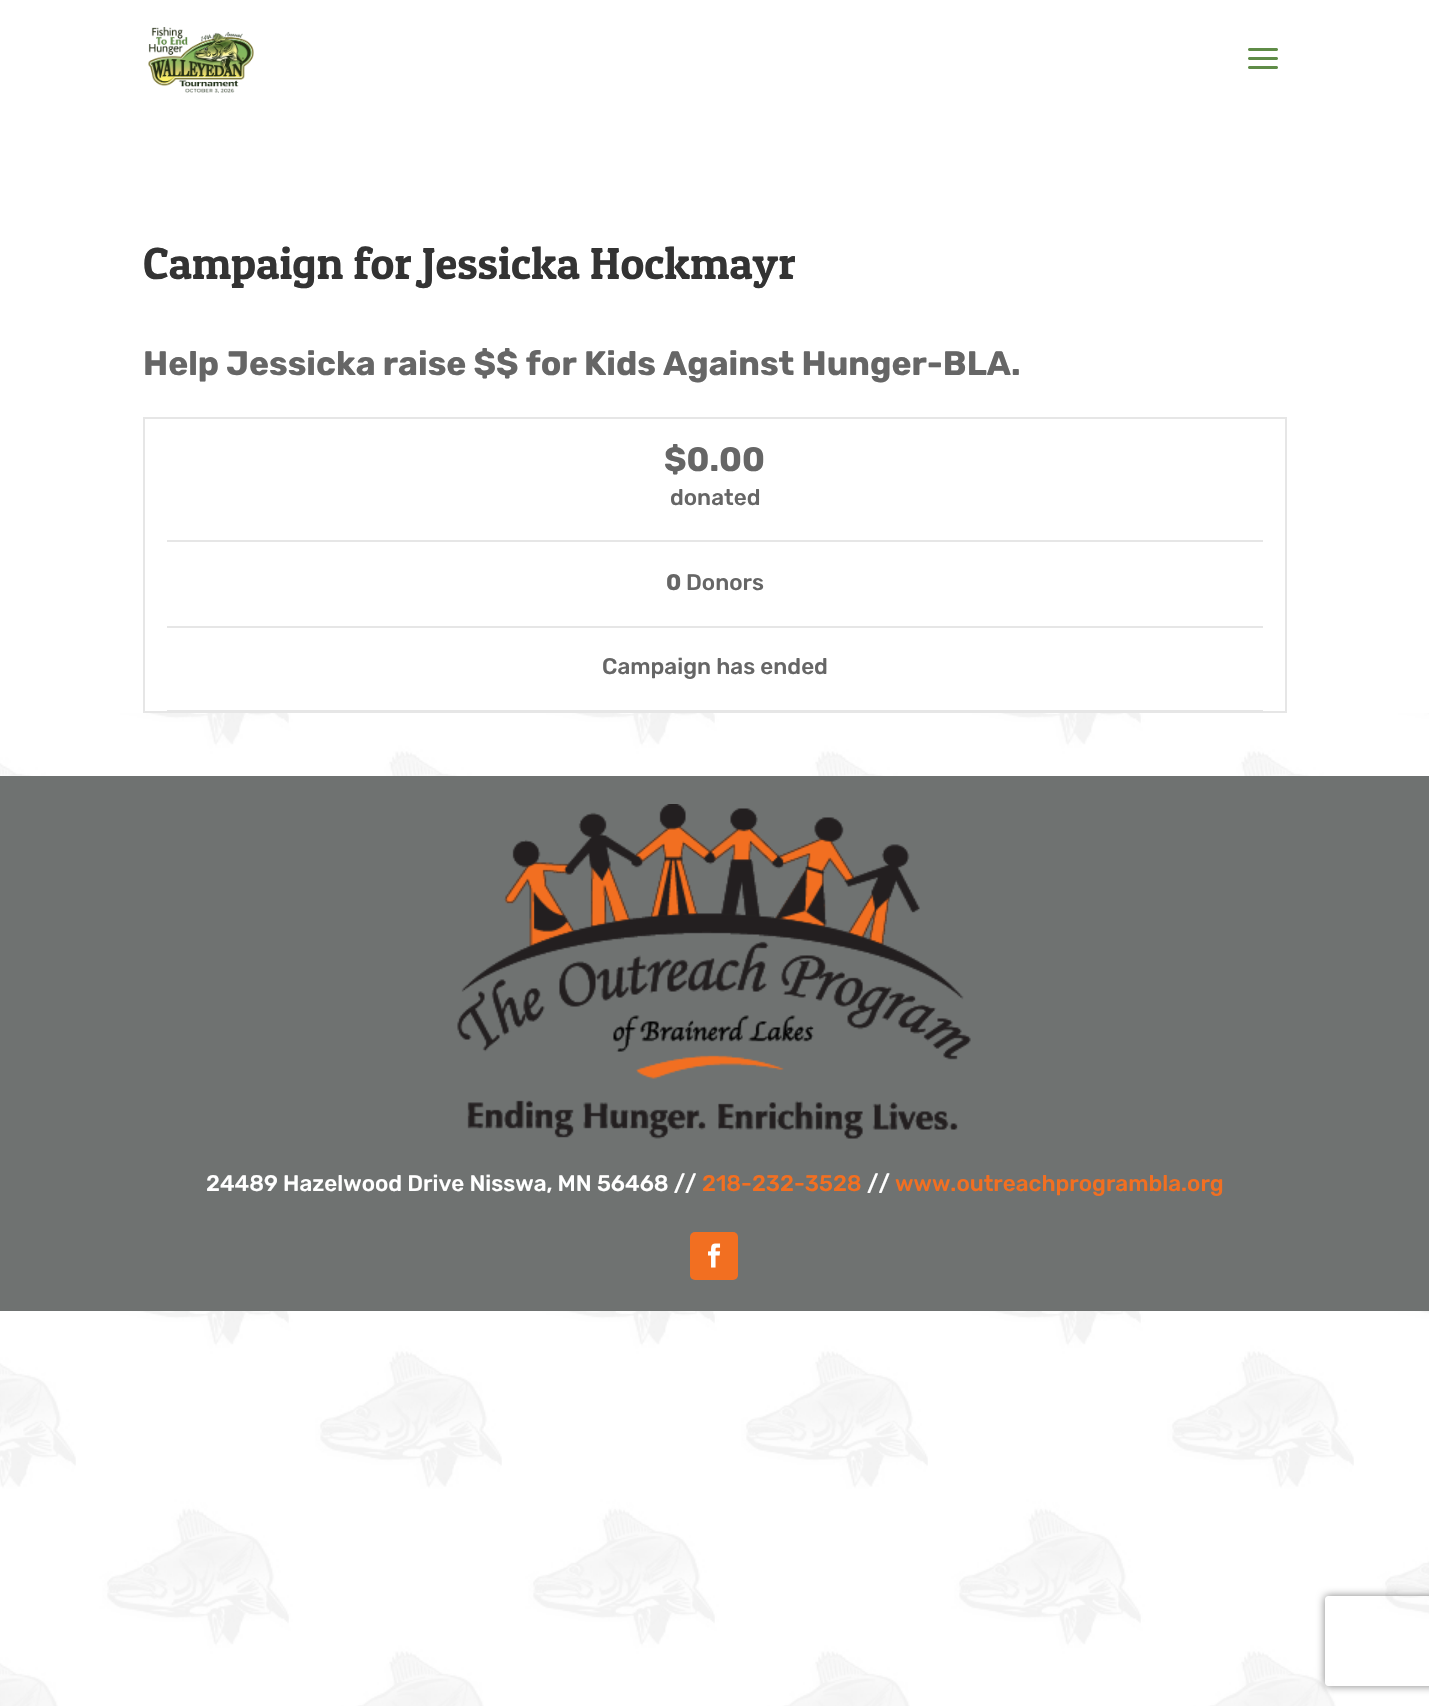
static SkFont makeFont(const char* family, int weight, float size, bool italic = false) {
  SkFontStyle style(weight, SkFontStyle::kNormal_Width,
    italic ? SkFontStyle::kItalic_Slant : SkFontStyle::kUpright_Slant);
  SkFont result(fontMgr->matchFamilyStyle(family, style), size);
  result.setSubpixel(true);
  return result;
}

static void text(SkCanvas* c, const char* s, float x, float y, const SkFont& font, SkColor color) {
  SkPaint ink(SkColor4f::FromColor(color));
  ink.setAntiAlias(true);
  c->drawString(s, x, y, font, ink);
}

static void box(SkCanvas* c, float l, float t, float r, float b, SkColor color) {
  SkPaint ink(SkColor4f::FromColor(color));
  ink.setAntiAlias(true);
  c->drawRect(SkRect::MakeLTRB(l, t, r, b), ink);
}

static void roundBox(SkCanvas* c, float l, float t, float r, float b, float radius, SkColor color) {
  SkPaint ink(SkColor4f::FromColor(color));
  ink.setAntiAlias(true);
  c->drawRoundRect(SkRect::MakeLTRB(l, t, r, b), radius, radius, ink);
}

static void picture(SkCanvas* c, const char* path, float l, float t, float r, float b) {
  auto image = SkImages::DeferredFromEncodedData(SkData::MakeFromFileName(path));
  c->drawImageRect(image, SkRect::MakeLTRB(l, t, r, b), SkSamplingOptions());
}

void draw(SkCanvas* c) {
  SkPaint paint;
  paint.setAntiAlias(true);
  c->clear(0xffffffff);
  picture(c, "img_01.png", 0, 713, 1429, 1706);
  picture(c, "img_02.png", 148, 27, 254, 93);
  picture(c, "img_03.png", 1248, 48, 1278, 69);
  SkFont face1 = makeFont("Patua One", 400, 45);
  text(c, "Campaign for Jessicka Hockmayr", 143, 279, face1, 0xff333333);
  SkFont face2 = makeFont("Rubik", 300, 33.75f);
  text(c, "Help Jessicka raise $$ for Kids Against Hunger-BLA.", 143, 375, face2, 0xff666666);
  paint.setStyle(SkPaint::kStroke_Style);
  paint.setStrokeWidth(2);
  paint.setColor(0xffe6e6e6);
  c->drawRect(SkRect::MakeLTRB(144, 418, 1286, 712), paint);
  box(c, 167, 540, 1263, 542, 0xffe6e6e6);
  text(c, "$0.00", 664, 471, face2, 0xff666666);
  SkFont face3 = makeFont("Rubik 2", 300, 22.5f);
  text(c, "donated", 670, 505, face3, 0xff666666);
  box(c, 167, 626, 1263, 628, 0xffe6e6e6);
  SkFont face4 = makeFont("Rubik", 300, 22.5f);
  text(c, "0", 666, 590, face4, 0xff666666);
  text(c, "Donors", 686, 590, face3, 0xff666666);
  box(c, 167, 710, 1263, 711, 0xffe6e6e6);
  text(c, "Campaign has ended", 602, 674, face3, 0xff666666);
  box(c, 0, 776, 1429, 1311, 0xff6f7271);
  picture(c, "img_04.png", 457, 804, 971, 1139);
  text(c, "24489 Hazelwood Drive Nisswa, MN 56468 //", 206, 1191, face3, 0xffffffff);
  text(c, "218-232-3528", 702, 1191, face3, 0xfff26f21);
  text(c, "//", 867, 1191, face3, 0xffffffff);
  text(c, "www.outreachprogrambla.org", 895, 1191, face3, 0xfff26f21);
  roundBox(c, 690, 1232, 738, 1280, 5, 0xfff26f21);
  picture(c, "img_05.png", 708, 1243, 721, 1268);
  c->save();
  c->clipPath(SkPathBuilder(SkPathFillType::kEvenOdd).moveTo(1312, 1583).lineTo(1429, 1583).lineTo(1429, 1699).lineTo(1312, 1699).close().moveTo(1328, 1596).lineTo(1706, 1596).cubicTo(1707.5f, 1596, 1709, 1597.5f, 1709, 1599).lineTo(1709, 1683).cubicTo(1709, 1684.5f, 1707.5f, 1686, 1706, 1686).lineTo(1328, 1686).cubicTo(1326.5f, 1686, 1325, 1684.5f, 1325, 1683).lineTo(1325, 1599).cubicTo(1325, 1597.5f, 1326.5f, 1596, 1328, 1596).close().detach(), true);
  paint.setStyle(SkPaint::kFill_Style);
  paint.setColor(0xff808080);
  paint.setMaskFilter(SkMaskFilter::MakeBlur(kNormal_SkBlurStyle, 4));
  c->drawRoundRect(SkRect::MakeLTRB(1325, 1596, 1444, 1686), 3, 3, paint);
  paint.setMaskFilter(nullptr);
  c->restore();
}
